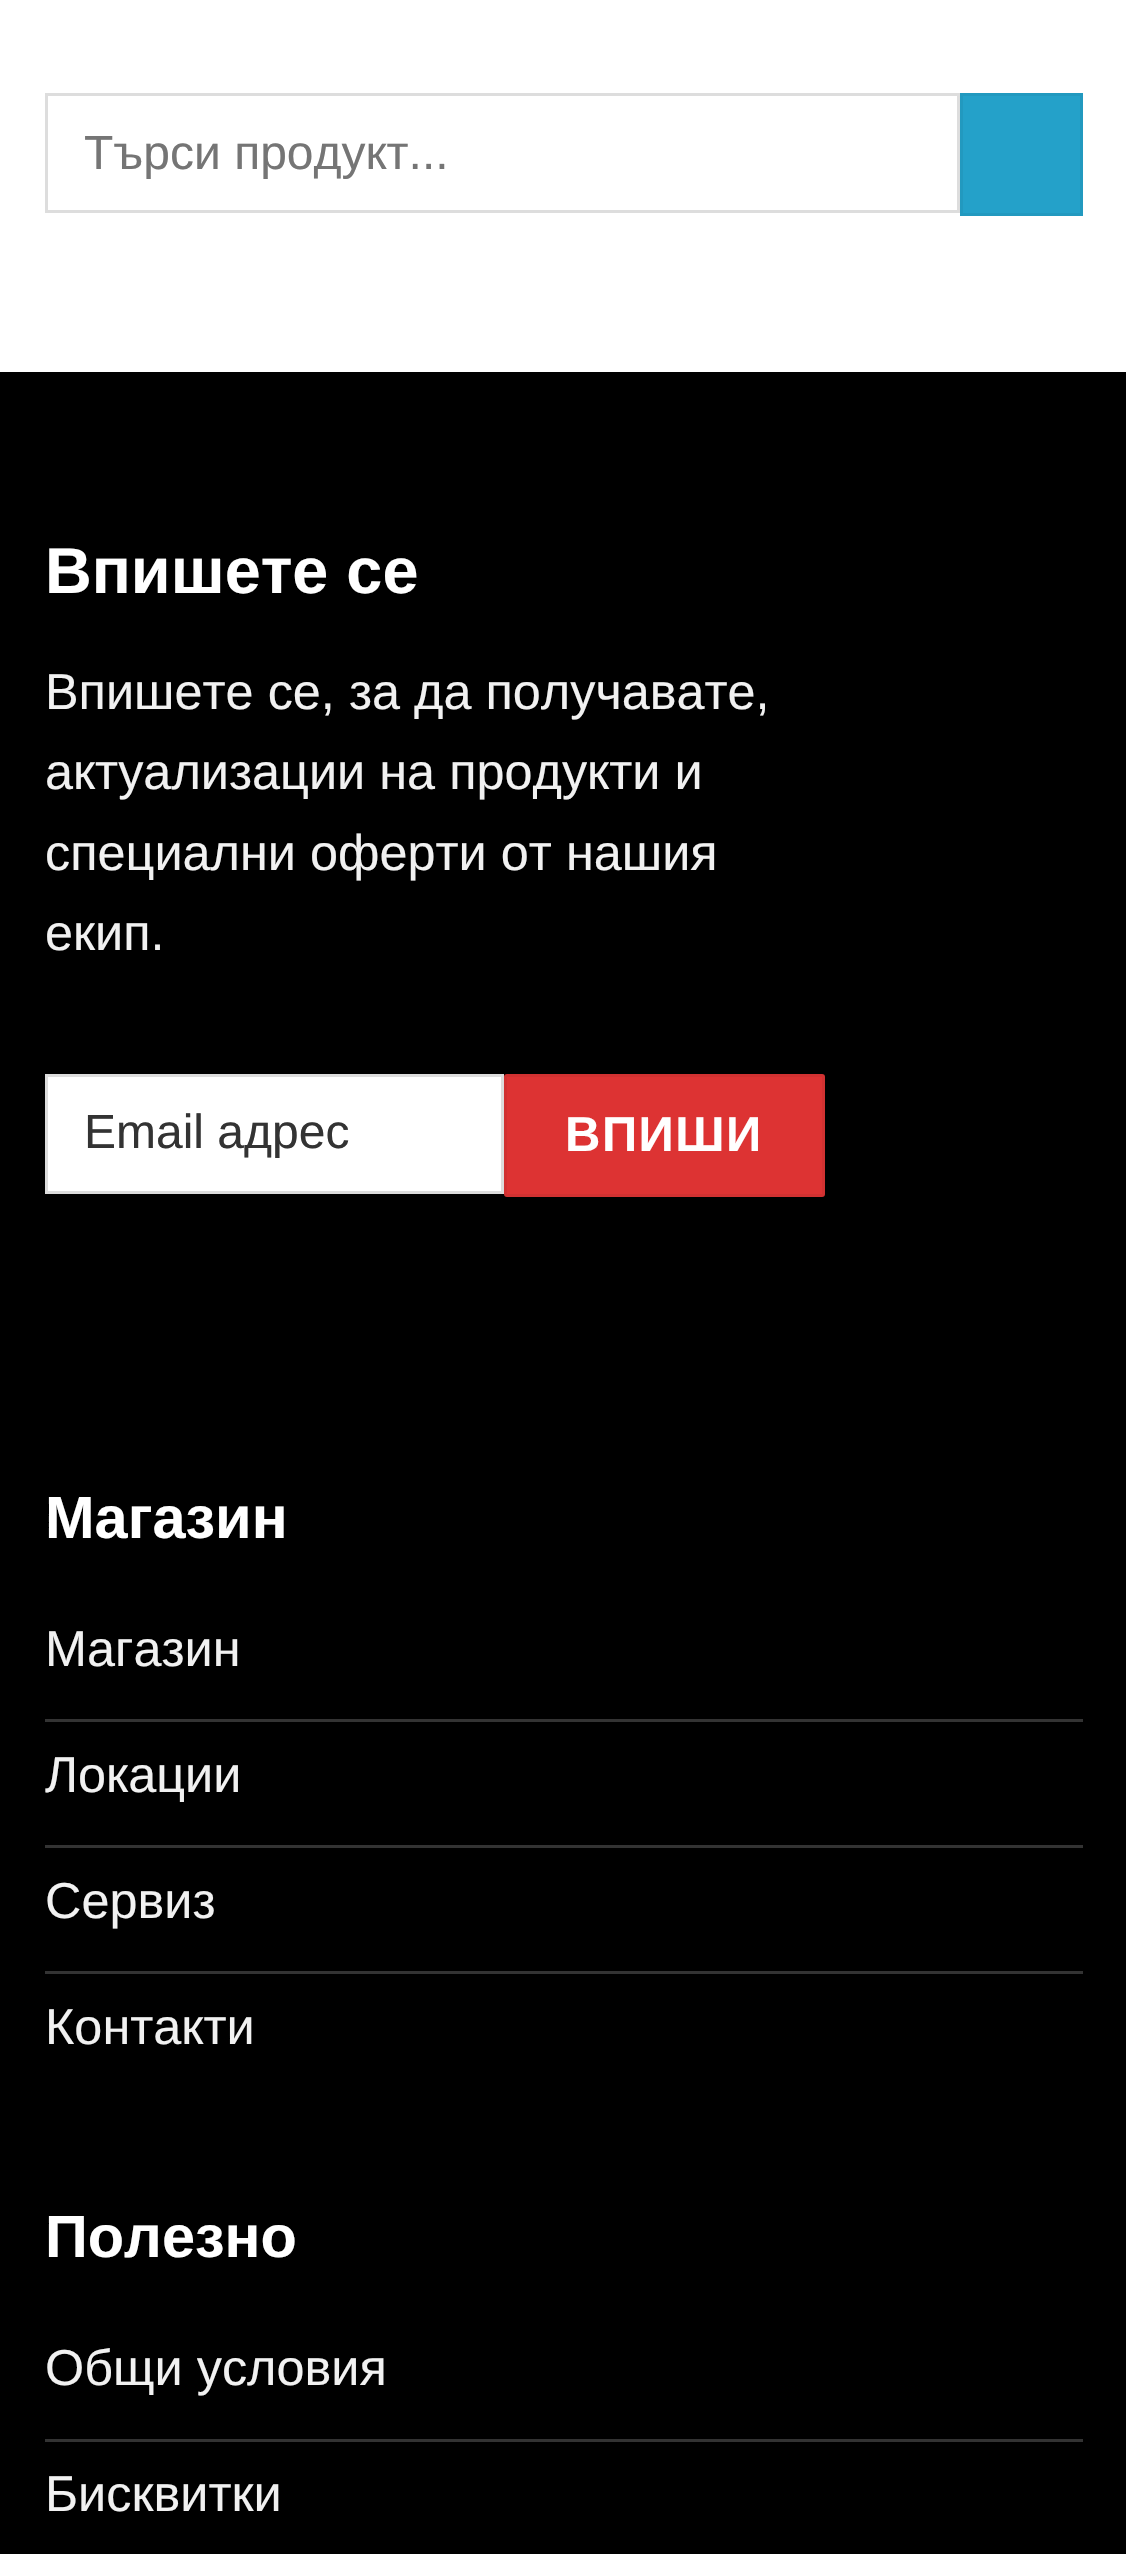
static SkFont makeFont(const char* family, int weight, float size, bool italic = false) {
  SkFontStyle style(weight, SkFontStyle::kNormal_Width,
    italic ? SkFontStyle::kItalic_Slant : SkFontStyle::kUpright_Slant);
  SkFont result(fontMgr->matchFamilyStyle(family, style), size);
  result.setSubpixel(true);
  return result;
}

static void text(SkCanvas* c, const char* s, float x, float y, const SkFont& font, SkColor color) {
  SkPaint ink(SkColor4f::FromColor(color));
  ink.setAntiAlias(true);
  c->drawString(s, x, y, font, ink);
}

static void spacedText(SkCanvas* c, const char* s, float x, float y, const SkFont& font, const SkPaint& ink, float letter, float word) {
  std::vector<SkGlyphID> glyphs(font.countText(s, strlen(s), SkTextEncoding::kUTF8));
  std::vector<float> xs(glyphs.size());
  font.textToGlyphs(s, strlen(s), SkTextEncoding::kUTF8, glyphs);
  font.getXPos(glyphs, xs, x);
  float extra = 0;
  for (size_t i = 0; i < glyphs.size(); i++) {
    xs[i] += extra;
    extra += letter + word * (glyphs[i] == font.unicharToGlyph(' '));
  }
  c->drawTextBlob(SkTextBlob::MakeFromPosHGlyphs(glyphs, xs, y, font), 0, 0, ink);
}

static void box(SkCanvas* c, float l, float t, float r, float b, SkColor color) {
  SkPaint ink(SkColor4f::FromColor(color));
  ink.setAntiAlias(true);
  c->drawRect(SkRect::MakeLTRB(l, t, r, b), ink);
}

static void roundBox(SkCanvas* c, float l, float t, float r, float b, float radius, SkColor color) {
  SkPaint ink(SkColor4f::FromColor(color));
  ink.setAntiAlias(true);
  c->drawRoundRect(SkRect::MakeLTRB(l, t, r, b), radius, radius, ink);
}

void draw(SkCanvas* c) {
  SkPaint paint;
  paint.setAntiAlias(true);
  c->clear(0xffffffff);
  paint.setStyle(SkPaint::kStroke_Style);
  paint.setStrokeWidth(3);
  paint.setColor(0xffdddddd);
  c->drawRect(SkRect::MakeLTRB(46.5f, 94.5f, 958.5f, 211.5f), paint);
  SkFont face1 = makeFont("Liberation Sans", 400, 48);
  text(c, "Търси продукт...", 84, 169, face1, 0xff757575);
  paint.setStyle(SkPaint::kFill_Style);
  paint.setColor(0xff24a1c9);
  c->drawRect(SkRect::MakeLTRB(961.5f, 94.5f, 1081.5f, 214.5f), paint);
  paint.setStyle(SkPaint::kStroke_Style);
  paint.setColor(0xff2299bf);
  c->drawRect(SkRect::MakeLTRB(961.5f, 94.5f, 1081.5f, 214.5f), paint);
  box(c, 0, 372, 1126, 2554, 0xff000000);
  SkFont face2 = makeFont("Liberation Sans", 700, 64.75f);
  text(c, "Впишете се", 45, 593, face2, 0xffffffff);
  SkFont face3 = makeFont("Liberation Sans", 400, 50.4f);
  text(c, "Впишете се, за да получавате,", 45, 709, face3, 0xfff1f1f1);
  text(c, "актуализации на продукти и", 45, 789, face3, 0xfff1f1f1);
  text(c, "специални оферти от нашия", 45, 870, face3, 0xfff1f1f1);
  text(c, "екип.", 45, 950, face3, 0xfff1f1f1);
  paint.setStyle(SkPaint::kFill_Style);
  paint.setColor(0xffffffff);
  c->drawRect(SkRect::MakeLTRB(46.5f, 1075.5f, 502.5f, 1192.5f), paint);
  paint.setStyle(SkPaint::kStroke_Style);
  paint.setColor(0xffdddddd);
  c->drawRect(SkRect::MakeLTRB(46.5f, 1075.5f, 502.5f, 1192.5f), paint);
  text(c, "Email адрес", 84, 1148, face1, 0xff333333);
  roundBox(c, 504, 1074, 825, 1197, 3, 0xffdd3333);
  paint.setColor(0x0d000000);
  c->drawRect(SkRect::MakeLTRB(505.5f, 1075.5f, 823.5f, 1195.5f), paint);
  SkFont face4 = makeFont("Liberation Sans", 700, 49);
  paint.setStyle(SkPaint::kFill_Style);
  paint.setColor(0xffffffff);
  spacedText(c, "ВПИШИ", 565, 1151, face4, paint, 1.5f, 0);
  SkFont face5 = makeFont("Liberation Sans", 700, 59.5f);
  text(c, "Магазин", 45, 1538, face5, 0xffffffff);
  box(c, 45, 1719, 1083, 1722, 0xff333333);
  text(c, "Магазин", 45, 1666, face3, 0xfff1f1f1);
  box(c, 45, 1845, 1083, 1848, 0xff333333);
  text(c, "Локации", 45, 1792, face3, 0xfff1f1f1);
  box(c, 45, 1971, 1083, 1974, 0xff333333);
  text(c, "Сервиз", 45, 1918, face3, 0xfff1f1f1);
  text(c, "Контакти", 45, 2044, face3, 0xfff1f1f1);
  text(c, "Полезно", 45, 2257, face5, 0xffffffff);
  box(c, 45, 2439, 1083, 2442, 0xff333333);
  text(c, "Общи условия", 45, 2385, face3, 0xfff1f1f1);
  text(c, "Бисквитки", 45, 2511, face3, 0xfff1f1f1);
}
